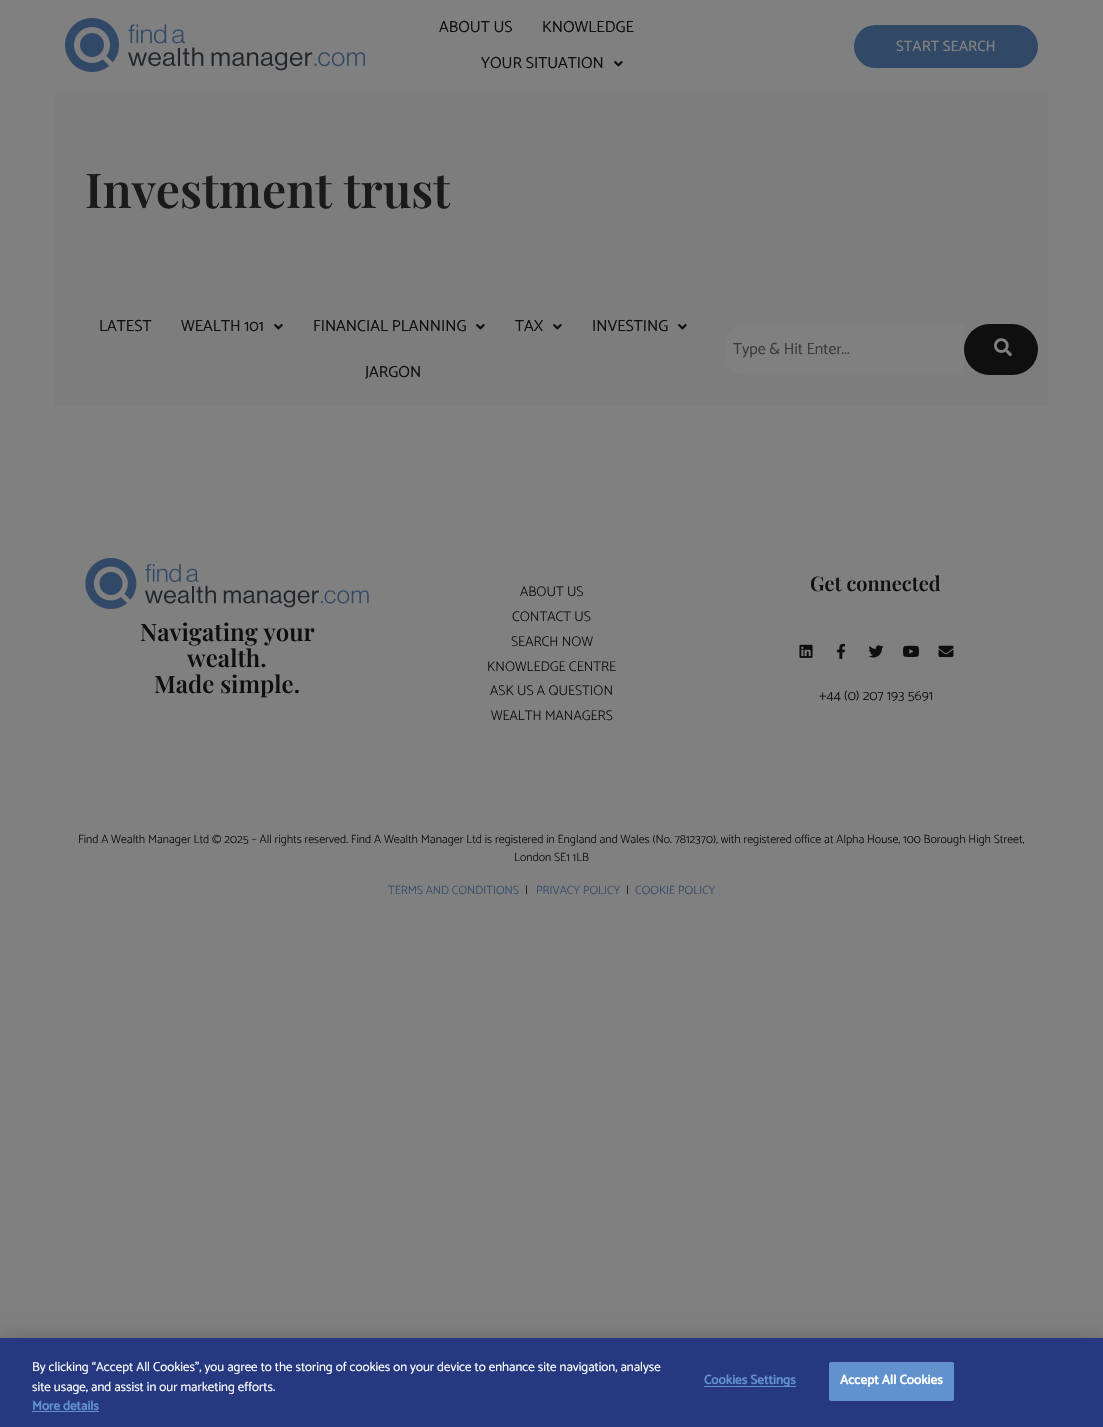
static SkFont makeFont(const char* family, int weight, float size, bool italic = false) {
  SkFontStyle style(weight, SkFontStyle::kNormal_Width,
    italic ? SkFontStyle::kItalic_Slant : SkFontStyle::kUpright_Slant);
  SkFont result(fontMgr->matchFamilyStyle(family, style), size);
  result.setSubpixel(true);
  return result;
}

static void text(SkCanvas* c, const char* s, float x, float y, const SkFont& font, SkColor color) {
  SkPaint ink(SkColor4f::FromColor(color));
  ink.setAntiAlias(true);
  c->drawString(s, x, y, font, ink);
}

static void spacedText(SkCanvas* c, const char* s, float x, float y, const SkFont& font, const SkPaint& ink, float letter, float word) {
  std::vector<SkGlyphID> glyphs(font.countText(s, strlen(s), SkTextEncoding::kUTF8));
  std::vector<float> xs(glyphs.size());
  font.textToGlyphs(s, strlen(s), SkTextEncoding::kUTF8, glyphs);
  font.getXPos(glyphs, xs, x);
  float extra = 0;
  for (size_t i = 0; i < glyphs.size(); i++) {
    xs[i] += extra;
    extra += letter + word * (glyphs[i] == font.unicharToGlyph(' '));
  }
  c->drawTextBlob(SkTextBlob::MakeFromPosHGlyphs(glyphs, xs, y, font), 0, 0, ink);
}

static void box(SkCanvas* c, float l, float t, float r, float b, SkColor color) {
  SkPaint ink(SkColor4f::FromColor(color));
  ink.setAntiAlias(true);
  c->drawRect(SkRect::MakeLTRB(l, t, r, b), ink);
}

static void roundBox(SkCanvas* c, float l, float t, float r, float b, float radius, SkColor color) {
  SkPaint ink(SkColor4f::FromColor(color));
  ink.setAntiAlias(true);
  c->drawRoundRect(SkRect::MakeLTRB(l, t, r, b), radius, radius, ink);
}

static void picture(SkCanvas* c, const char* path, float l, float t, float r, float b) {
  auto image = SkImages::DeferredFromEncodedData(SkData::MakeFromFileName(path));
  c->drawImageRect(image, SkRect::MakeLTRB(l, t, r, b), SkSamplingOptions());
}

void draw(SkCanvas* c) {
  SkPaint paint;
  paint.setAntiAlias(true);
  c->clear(0xff808080);
  picture(c, "img_01.png", 65, 18, 365, 72);
  SkFont face1 = makeFont("Catamaran", 400, 16);
  text(c, "ABOUT US", 439, 32, face1, 0xff0f0f0f);
  text(c, "KNOWLEDGE", 542, 32, face1, 0xff0f0f0f);
  text(c, "YOUR SITUATION", 481, 68, face1, 0xff0f0f0f);
  picture(c, "img_02.png", 614, 61, 623, 67);
  paint.setColor(0xff314967);
  c->drawRoundRect(SkRect::MakeLTRB(855, 26, 1037, 67), 20.5f, 20.5f, paint);
  paint.setStyle(SkPaint::kStroke_Style);
  paint.setStrokeWidth(2);
  c->drawRoundRect(SkRect::MakeLTRB(855, 26, 1037, 67), 20.5f, 20.5f, paint);
  SkFont face2 = makeFont("Catamaran", 500, 15);
  text(c, "START SEARCH", 896, 51, face2, 0xff808080);
  box(c, 55, 92, 1048, 406, 0xff7d7d7d);
  SkFont face3 = makeFont("Playfair Display", 600, 48);
  text(c, "Investment trust", 85, 208, face3, 0xff1a1a1a);
  text(c, "LATEST", 99, 331, face1, 0xff0f0f0f);
  text(c, "WEALTH 101", 181, 331, face1, 0xff0f0f0f);
  picture(c, "img_03.png", 274, 324, 283, 330);
  text(c, "FINANCIAL PLANNING", 313, 331, face1, 0xff0f0f0f);
  picture(c, "img_03.png", 476, 324, 485, 330);
  text(c, "TAX", 515, 331, face1, 0xff0f0f0f);
  picture(c, "img_03.png", 553, 324, 562, 330);
  text(c, "INVESTING", 592, 331, face1, 0xff0f0f0f);
  picture(c, "img_03.png", 678, 324, 687, 330);
  text(c, "JARGON", 365, 377, face1, 0xff0f0f0f);
  paint.setStyle(SkPaint::kFill_Style);
  paint.setColor(0xff808080);
  c->drawPath(SkPathBuilder().moveTo(745, 324).lineTo(964, 324).lineTo(964, 375).lineTo(745, 375).cubicTo(734, 375, 725, 366, 725, 355).lineTo(725, 344).cubicTo(725, 333, 734, 324, 745, 324).close().detach(), paint);
  text(c, "Type & Hit Enter...", 733, 354, face1, 0xff3b3b3b);
  roundBox(c, 964, 324, 1038, 375, 25.5f, 0xff0f0f0f);
  picture(c, "img_04.png", 994, 338, 1012, 357);
  picture(c, "img_05.png", 85, 558, 369, 609);
  SkFont face4 = makeFont("Playfair Display", 600, 24);
  text(c, "Navigating your", 140, 641, face4, 0xff0f0f0f);
  text(c, "wealth.", 187, 667, face4, 0xff0f0f0f);
  text(c, "Made simple.", 154, 693, face4, 0xff0f0f0f);
  SkFont face5 = makeFont("Catamaran", 300, 14);
  text(c, "ABOUT US", 520, 596, face5, 0xff0f0f0f);
  text(c, "CONTACT US", 512, 621, face5, 0xff0f0f0f);
  text(c, "SEARCH NOW", 511, 646, face5, 0xff0f0f0f);
  text(c, "KNOWLEDGE CENTRE", 487, 671, face5, 0xff0f0f0f);
  text(c, "ASK US A QUESTION", 490, 695, face5, 0xff0f0f0f);
  text(c, "WEALTH MANAGERS", 491, 720, face5, 0xff0f0f0f);
  SkFont face6 = makeFont("Playfair Display", 600, 20);
  text(c, "Get connected", 810, 591, face6, 0xff0f0f0f);
  picture(c, "img_06.png", 799, 644, 813, 658);
  picture(c, "img_07.png", 837, 643, 845, 659);
  picture(c, "img_08.png", 868, 645, 884, 658);
  picture(c, "img_09.png", 903, 645, 919, 657);
  picture(c, "img_10.png", 938, 645, 954, 657);
  text(c, "+44 (0) 207 193 5691", 819, 700, face5, 0xff0f0f0f);
  SkFont face7 = makeFont("Catamaran", 300, 12);
  text(c, "Find A Wealth Manager Ltd © 2025 – All rights reserved. Find A Wealth Manager Ltd is registered in England and Wales (No. 7812370), with registered office at Alpha House, 100 Borough High Street,", 78, 843, face7, 0xff0f0f0f);
  text(c, "London SE1 1LB", 514, 861, face7, 0xff0f0f0f);
  text(c, "TERMS AND CONDITIONS", 388, 894, face7, 0xff314967);
  text(c, "|", 525, 894, face7, 0xff0f0f0f);
  text(c, "PRIVACY POLICY", 536, 894, face7, 0xff314967);
  text(c, "|", 626, 894, face7, 0xff0f0f0f);
  text(c, "COOKIE POLICY", 635, 894, face7, 0xff314967);
  paint.setColor(0x33000000);
  paint.setMaskFilter(SkMaskFilter::MakeBlur(kNormal_SkBlurStyle, 9));
  c->drawRect(SkRect::MakeLTRB(0, 1338, 1103, 1427), paint);
  paint.setMaskFilter(nullptr);
  box(c, 0, 1338, 1103, 1427, 0xff263980);
  SkFont face8 = makeFont("Catamaran", 400, 13);
  text(c, "By clicking “Accept All Cookies”, you agree to the storing of cookies on your device to enhance site navigation, analyse", 32, 1371, face8, 0xffffffff);
  text(c, "site usage, and assist in our marketing efforts.", 32, 1391, face8, 0xffffffff);
  SkFont face9 = makeFont("Catamaran", 700, 13);
  text(c, "More details", 32, 1410, face9, 0xff6292cd);
  box(c, 32, 1411, 99, 1412, 0xff6292cd);
  box(c, 704, 1386, 796, 1387, 0xff6292cd);
  paint.setColor(0xff6292cd);
  spacedText(c, "Cookies Settings", 704, 1384, face9, paint, 0.1f, 0);
  roundBox(c, 829, 1362, 954, 1401, 2, 0xff6292cd);
  paint.setColor(0xffffffff);
  spacedText(c, "Accept All Cookies", 840, 1384, face9, paint, 0.1f, 0);
}
